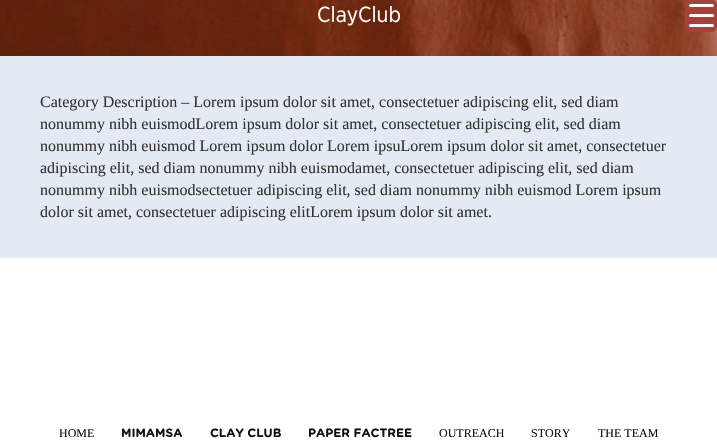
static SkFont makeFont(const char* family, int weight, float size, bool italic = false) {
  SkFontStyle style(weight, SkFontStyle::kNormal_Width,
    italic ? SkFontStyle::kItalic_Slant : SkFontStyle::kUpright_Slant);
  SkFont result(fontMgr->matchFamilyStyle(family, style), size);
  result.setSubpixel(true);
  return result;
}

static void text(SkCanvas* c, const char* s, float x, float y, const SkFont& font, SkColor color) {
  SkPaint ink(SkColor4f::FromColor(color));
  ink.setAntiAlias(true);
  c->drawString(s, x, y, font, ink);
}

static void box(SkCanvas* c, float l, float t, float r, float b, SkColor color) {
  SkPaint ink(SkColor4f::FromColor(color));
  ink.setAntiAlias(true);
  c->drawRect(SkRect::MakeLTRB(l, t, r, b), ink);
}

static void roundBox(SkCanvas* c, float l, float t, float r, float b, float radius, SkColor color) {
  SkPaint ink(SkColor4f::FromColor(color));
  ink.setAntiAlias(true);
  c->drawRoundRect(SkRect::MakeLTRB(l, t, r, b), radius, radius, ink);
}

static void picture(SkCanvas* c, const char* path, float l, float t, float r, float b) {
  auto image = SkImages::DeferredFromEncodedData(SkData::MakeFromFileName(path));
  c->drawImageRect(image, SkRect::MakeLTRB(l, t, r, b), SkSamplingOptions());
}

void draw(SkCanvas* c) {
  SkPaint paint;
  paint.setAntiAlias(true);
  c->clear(0xffffffff);
  picture(c, "img_01.png", 0, 0, 717, 56);
  SkFont face1 = makeFont("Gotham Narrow", 400, 22);
  text(c, "ClayClub", 317, 22, face1, 0xffffffff);
  roundBox(c, 685, 0, 717, 32, 5, 0xffa44138);
  roundBox(c, 689, 14, 714, 17, 1.5f, 0xffffffff);
  roundBox(c, 689, 4, 714, 7, 1.5f, 0xffffffff);
  roundBox(c, 689, 24, 714, 27, 1.5f, 0xffffffff);
  box(c, 0, 56, 717, 258, 0xffe4eaf3);
  SkFont face2 = makeFont("Liberation Serif", 400, 16);
  text(c, "Category Description – Lorem ipsum dolor sit amet, consectetuer adipiscing elit, sed diam", 40, 107, face2, 0xff333333);
  text(c, "nonummy nibh euismodLorem ipsum dolor sit amet, consectetuer adipiscing elit, sed diam", 40, 129, face2, 0xff333333);
  text(c, "nonummy nibh euismod Lorem ipsum dolor Lorem ipsuLorem ipsum dolor sit amet, consectetuer", 40, 151, face2, 0xff333333);
  text(c, "adipiscing elit, sed diam nonummy nibh euismodamet, consectetuer adipiscing elit, sed diam", 40, 173, face2, 0xff333333);
  text(c, "nonummy nibh euismodsectetuer adipiscing elit, sed diam nonummy nibh euismod Lorem ipsum", 40, 195, face2, 0xff333333);
  text(c, "dolor sit amet, consectetuer adipiscing elitLorem ipsum dolor sit amet.", 40, 217, face2, 0xff333333);
  SkFont face3 = makeFont("Liberation Serif", 400, 12);
  text(c, "HOME", 59, 437, face3, 0xff111111);
  SkFont face4 = makeFont("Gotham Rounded", 700, 12);
  text(c, "MIMAMSA", 121, 437, face4, 0xff111111);
  text(c, "CLAY CLUB", 210, 437, face4, 0xff111111);
  text(c, "PAPER FACTREE", 308, 437, face4, 0xff111111);
  text(c, "OUTREACH", 439, 437, face3, 0xff111111);
  text(c, "STORY", 531, 437, face3, 0xff111111);
  text(c, "THE TEAM", 598, 437, face3, 0xff111111);
}
